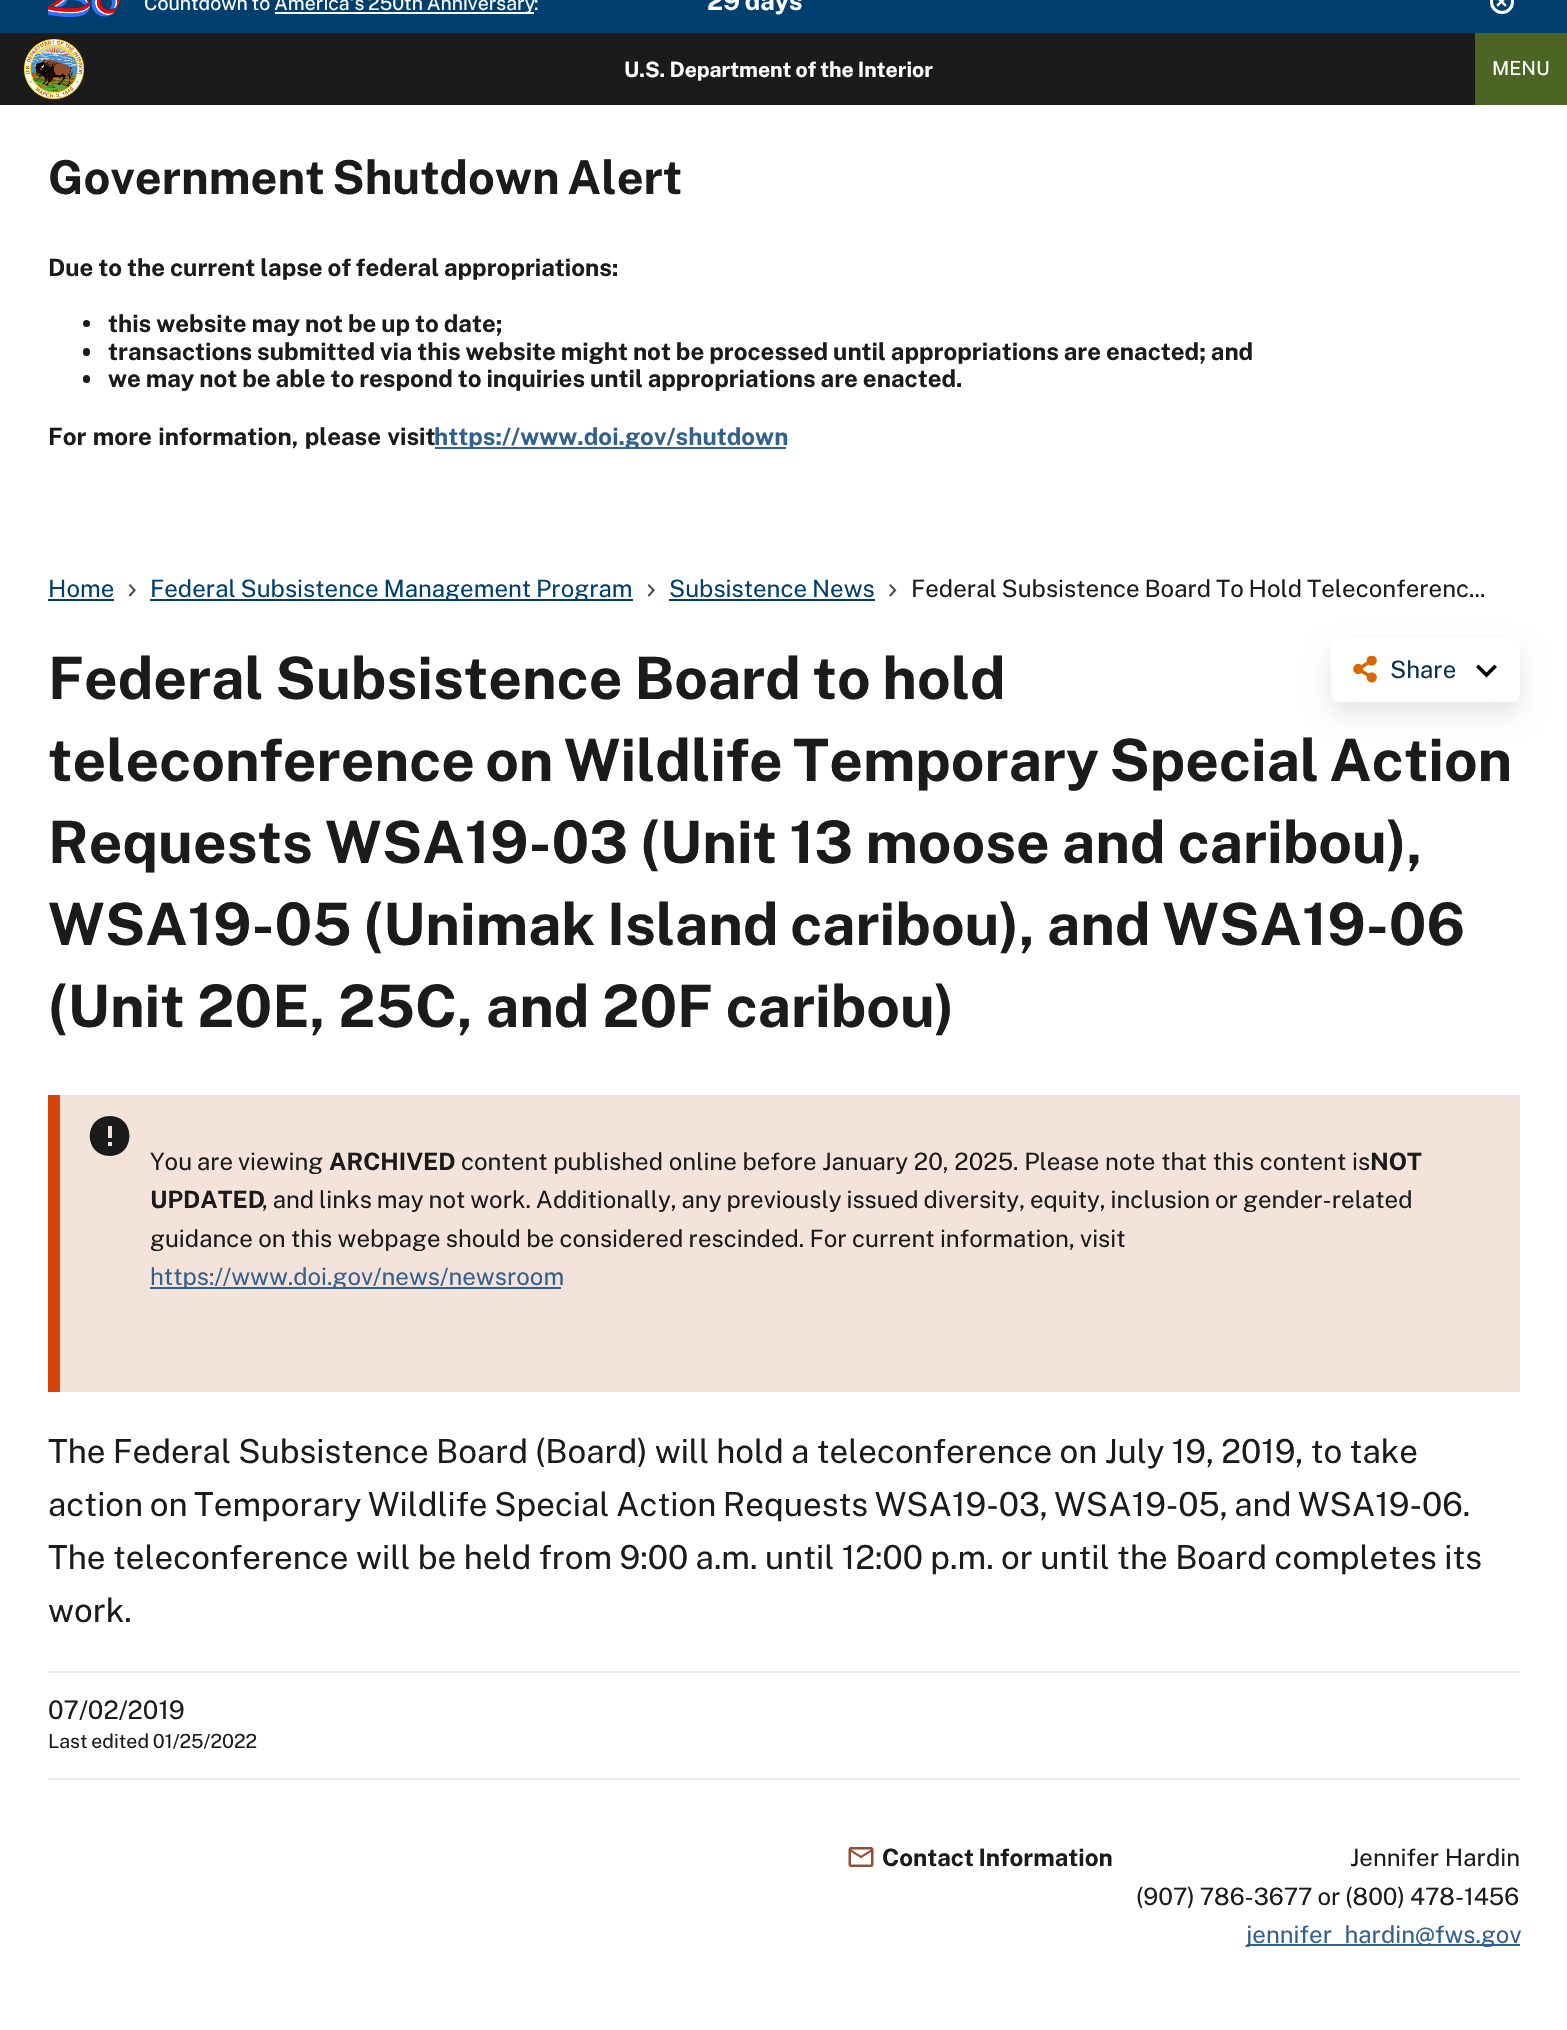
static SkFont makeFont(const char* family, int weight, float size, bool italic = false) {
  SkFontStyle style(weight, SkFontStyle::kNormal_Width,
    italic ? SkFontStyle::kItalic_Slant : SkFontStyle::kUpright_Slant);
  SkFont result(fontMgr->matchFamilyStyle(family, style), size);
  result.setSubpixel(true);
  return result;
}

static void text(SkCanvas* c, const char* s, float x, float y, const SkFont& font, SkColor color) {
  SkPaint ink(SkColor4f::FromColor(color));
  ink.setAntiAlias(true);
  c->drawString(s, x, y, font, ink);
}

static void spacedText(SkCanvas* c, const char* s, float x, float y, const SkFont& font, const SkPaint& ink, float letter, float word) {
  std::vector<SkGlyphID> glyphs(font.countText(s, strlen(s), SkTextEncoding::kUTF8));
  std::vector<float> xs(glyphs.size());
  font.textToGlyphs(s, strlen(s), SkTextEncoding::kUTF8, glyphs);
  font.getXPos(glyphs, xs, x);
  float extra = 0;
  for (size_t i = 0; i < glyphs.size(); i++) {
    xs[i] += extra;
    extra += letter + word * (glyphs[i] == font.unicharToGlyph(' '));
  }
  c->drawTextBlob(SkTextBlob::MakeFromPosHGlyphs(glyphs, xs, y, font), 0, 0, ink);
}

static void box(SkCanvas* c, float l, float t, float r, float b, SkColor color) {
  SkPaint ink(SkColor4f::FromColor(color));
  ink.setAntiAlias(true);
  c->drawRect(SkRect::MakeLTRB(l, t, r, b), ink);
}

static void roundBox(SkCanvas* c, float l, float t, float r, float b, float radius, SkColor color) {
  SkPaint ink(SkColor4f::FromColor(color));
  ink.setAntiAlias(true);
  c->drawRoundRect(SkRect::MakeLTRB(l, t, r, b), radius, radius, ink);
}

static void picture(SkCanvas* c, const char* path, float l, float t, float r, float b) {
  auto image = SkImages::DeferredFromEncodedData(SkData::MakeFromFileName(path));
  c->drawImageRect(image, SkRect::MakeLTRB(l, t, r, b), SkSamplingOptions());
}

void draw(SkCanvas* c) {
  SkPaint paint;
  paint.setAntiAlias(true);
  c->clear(0xffffffff);
  box(c, 0, 0, 1567, 33, 0xff01406e);
  picture(c, "img_01.png", 48, 0, 120, 17);
  SkFont face1 = makeFont("Public Sans", 400, 19.5f);
  paint.setColor(0xffffffff);
  spacedText(c, "Countdown to", 144, 10, face1, paint, 0, -1);
  box(c, 275, 12, 534, 14, 0xffffffff);
  spacedText(c, "America's 250th Anniversary", 274, 10, face1, paint, 0, -1);
  text(c, ":", 534, 10, face1, 0xffffffff);
  SkFont face2 = makeFont("Public Sans", 700, 25.5f);
  spacedText(c, "29 days", 707, 10, face2, paint, 0, -1);
  picture(c, "img_02.png", 1496, 0, 1507, 7);
  paint.setStyle(SkPaint::kStroke_Style);
  paint.setStrokeWidth(3);
  c->drawCircle(1502, 2, 10.5f, paint);
  box(c, 0, 33, 1475, 105, 0xff1b1b1b);
  picture(c, "img_03.png", 24, 39, 84, 99);
  SkFont face3 = makeFont("Public Sans", 700, 21.1f);
  paint.setStyle(SkPaint::kFill_Style);
  spacedText(c, "U.S. Department of the Interior", 624, 77, face3, paint, 0, -0.6f);
  box(c, 1475, 33, 1567, 105, 0xff4c6424);
  text(c, "MENU", 1492, 75, face1, 0xffffffff);
  SkFont face4 = makeFont("Public Sans", 700, 46.75f);
  paint.setColor(0xff1b1b1b);
  spacedText(c, "Government Shutdown Alert", 48, 194, face4, paint, 0, -3);
  SkFont face5 = makeFont("Public Sans", 700, 24);
  spacedText(c, "Due to the current lapse of federal appropriations:", 48, 276, face5, paint, 0, -0.5f);
  c->drawCircle(86.5f, 323.5f, 3.5f, paint);
  spacedText(c, "this website may not be up to date;", 108, 332, face5, paint, 0, -0.5f);
  roundBox(c, 83, 348, 90, 356, 3.5f, 0xff1b1b1b);
  spacedText(c, "transactions submitted via this website might not be processed until appropriations are enacted; and", 108, 360, face5, paint, 0, -0.5f);
  roundBox(c, 83, 375, 90, 383, 3.5f, 0xff1b1b1b);
  spacedText(c, "we may not be able to respond to inquiries until appropriations are enacted.", 108, 387, face5, paint, 0, -0.5f);
  spacedText(c, "For more information, please visit", 48, 445, face5, paint, 0, 1);
  box(c, 435, 447, 786, 449, 0xff33618f);
  text(c, "https://www.doi.gov/shutdown", 434, 445, face5, 0xff33618f);
  SkFont face6 = makeFont("Public Sans", 400, 24);
  text(c, "Home", 48, 597, face6, 0xff01406e);
  box(c, 48, 599, 114, 601, 0xff01406e);
  picture(c, "img_04.png", 128, 584, 136, 597);
  box(c, 150, 599, 633, 601, 0xff01406e);
  paint.setColor(0xff01406e);
  spacedText(c, "Federal Subsistence Management Program", 150, 597, face6, paint, 0, -1);
  picture(c, "img_04.png", 647, 584, 655, 597);
  spacedText(c, "Subsistence News", 669, 597, face6, paint, 0, -1);
  box(c, 669, 599, 875, 601, 0xff01406e);
  picture(c, "img_05.png", 889, 584, 897, 597);
  paint.setColor(0xff1b1b1b);
  spacedText(c, "Federal Subsistence Board To Hold Teleconferenc...", 911, 597, face6, paint, 0, -1);
  SkFont face7 = makeFont("Public Sans", 700, 58.55f);
  spacedText(c, "Federal Subsistence Board to hold", 48, 699, face7, paint, 0, -1.5f);
  spacedText(c, "teleconference on Wildlife Temporary Special Action", 48, 781, face7, paint, 0, -3);
  spacedText(c, "Requests WSA19-03 (Unit 13 moose and caribou),", 48, 863, face7, paint, 0, -1);
  spacedText(c, "WSA19-05 (Unimak Island caribou), and WSA19-06", 48, 945, face7, paint, 0, -1.5f);
  spacedText(c, "(Unit 20E, 25C, and 20F caribou)", 48, 1027, face7, paint, 0, -0.5f);
  paint.setColor(0x1a000000);
  paint.setMaskFilter(SkMaskFilter::MakeBlur(kNormal_SkBlurStyle, 12));
  c->drawRoundRect(SkRect::MakeLTRB(1331, 650, 1520, 714), 8, 8, paint);
  paint.setMaskFilter(nullptr);
  roundBox(c, 1331, 638, 1520, 702, 8, 0xffffffff);
  picture(c, "img_06.png", 1353, 656, 1377, 683);
  text(c, "Share", 1390, 678, face6, 0xff08314d);
  paint.setColor(0xff000000);
  c->drawPath(SkPathBuilder().moveTo(1478.5f, 664.5f).lineTo(1486.5f, 672.5f).lineTo(1494.5f, 664.5f).lineTo(1497, 667).lineTo(1486.5f, 677.5f).lineTo(1476, 667).close().detach(), paint);
  box(c, 60, 1095, 1520, 1392, 0xfff4e3db);
  box(c, 48, 1095, 60, 1392, 0xffd54309);
  paint.setColor(0xff1b1b1b);
  c->drawPath(SkPathBuilder().moveTo(110, 1116).cubicTo(83, 1116, 83, 1156, 110, 1156).cubicTo(136, 1156, 136, 1116, 110, 1116).close().moveTo(112, 1146).lineTo(108, 1146).lineTo(108, 1142).lineTo(112, 1142).close().moveTo(112, 1138).lineTo(108, 1138).lineTo(108, 1126).lineTo(112, 1126).close().detach(), paint);
  spacedText(c, "You are viewing", 150, 1170, face6, paint, 0, -1);
  text(c, "ARCHIVED", 329, 1170, face5, 0xff1b1b1b);
  spacedText(c, "content published online before January 20, 2025. Please note that this content is", 461, 1170, face6, paint, 0, -0.1f);
  text(c, "NOT", 1370, 1170, face5, 0xff1b1b1b);
  text(c, "UPDATED", 150, 1208, face5, 0xff1b1b1b);
  spacedText(c, ", and links may not work. Additionally, any previously issued diversity, equity, inclusion or gender-related", 262, 1208, face6, paint, 0, -0.9f);
  spacedText(c, "guidance on this webpage should be considered rescinded. For current information, visit", 150, 1247, face6, paint, 0, -0.5f);
  box(c, 150, 1287, 561, 1289, 0xff33618f);
  text(c, "https://www.doi.gov/news/newsroom", 150, 1285, face6, 0xff33618f);
  SkFont face8 = makeFont("Public Sans", 400, 33.1f);
  spacedText(c, "The Federal Subsistence Board (Board) will hold a teleconference on July 19, 2019, to take", 48, 1463, face8, paint, 0, -0.75f);
  spacedText(c, "action on Temporary Wildlife Special Action Requests WSA19-03, WSA19-05, and WSA19-06.", 48, 1516, face8, paint, 0, -1.5f);
  spacedText(c, "The teleconference will be held from 9:00 a.m. until 12:00 p.m. or until the Board completes its", 48, 1569, face8, paint, 0, -0.6f);
  text(c, "work.", 48, 1622, face8, 0xff1b1b1b);
  box(c, 48, 1671, 1520, 1673, 0xffededec);
  box(c, 48, 1778, 1520, 1780, 0xffededec);
  SkFont face9 = makeFont("Public Sans", 400, 25.5f);
  text(c, "07/02/2019", 48, 1719, face9, 0xff1b1b1b);
  spacedText(c, "Last edited 01/25/2022", 48, 1748, face1, paint, 0, -1);
  picture(c, "img_07.png", 848, 1847, 874, 1867);
  spacedText(c, "Contact Information", 882, 1866, face5, paint, 0, -1);
  text(c, "Jennifer Hardin", 1350, 1866, face6, 0xff1b1b1b);
  spacedText(c, "(907) 786-3677 or (800) 478-1456", 1136, 1905, face6, paint, 0, -0.9f);
  box(c, 1247, 1944, 1520, 1946, 0xff33618f);
  text(c, "jennifer_hardin@fws.gov", 1246, 1943, face6, 0xff33618f);
}
